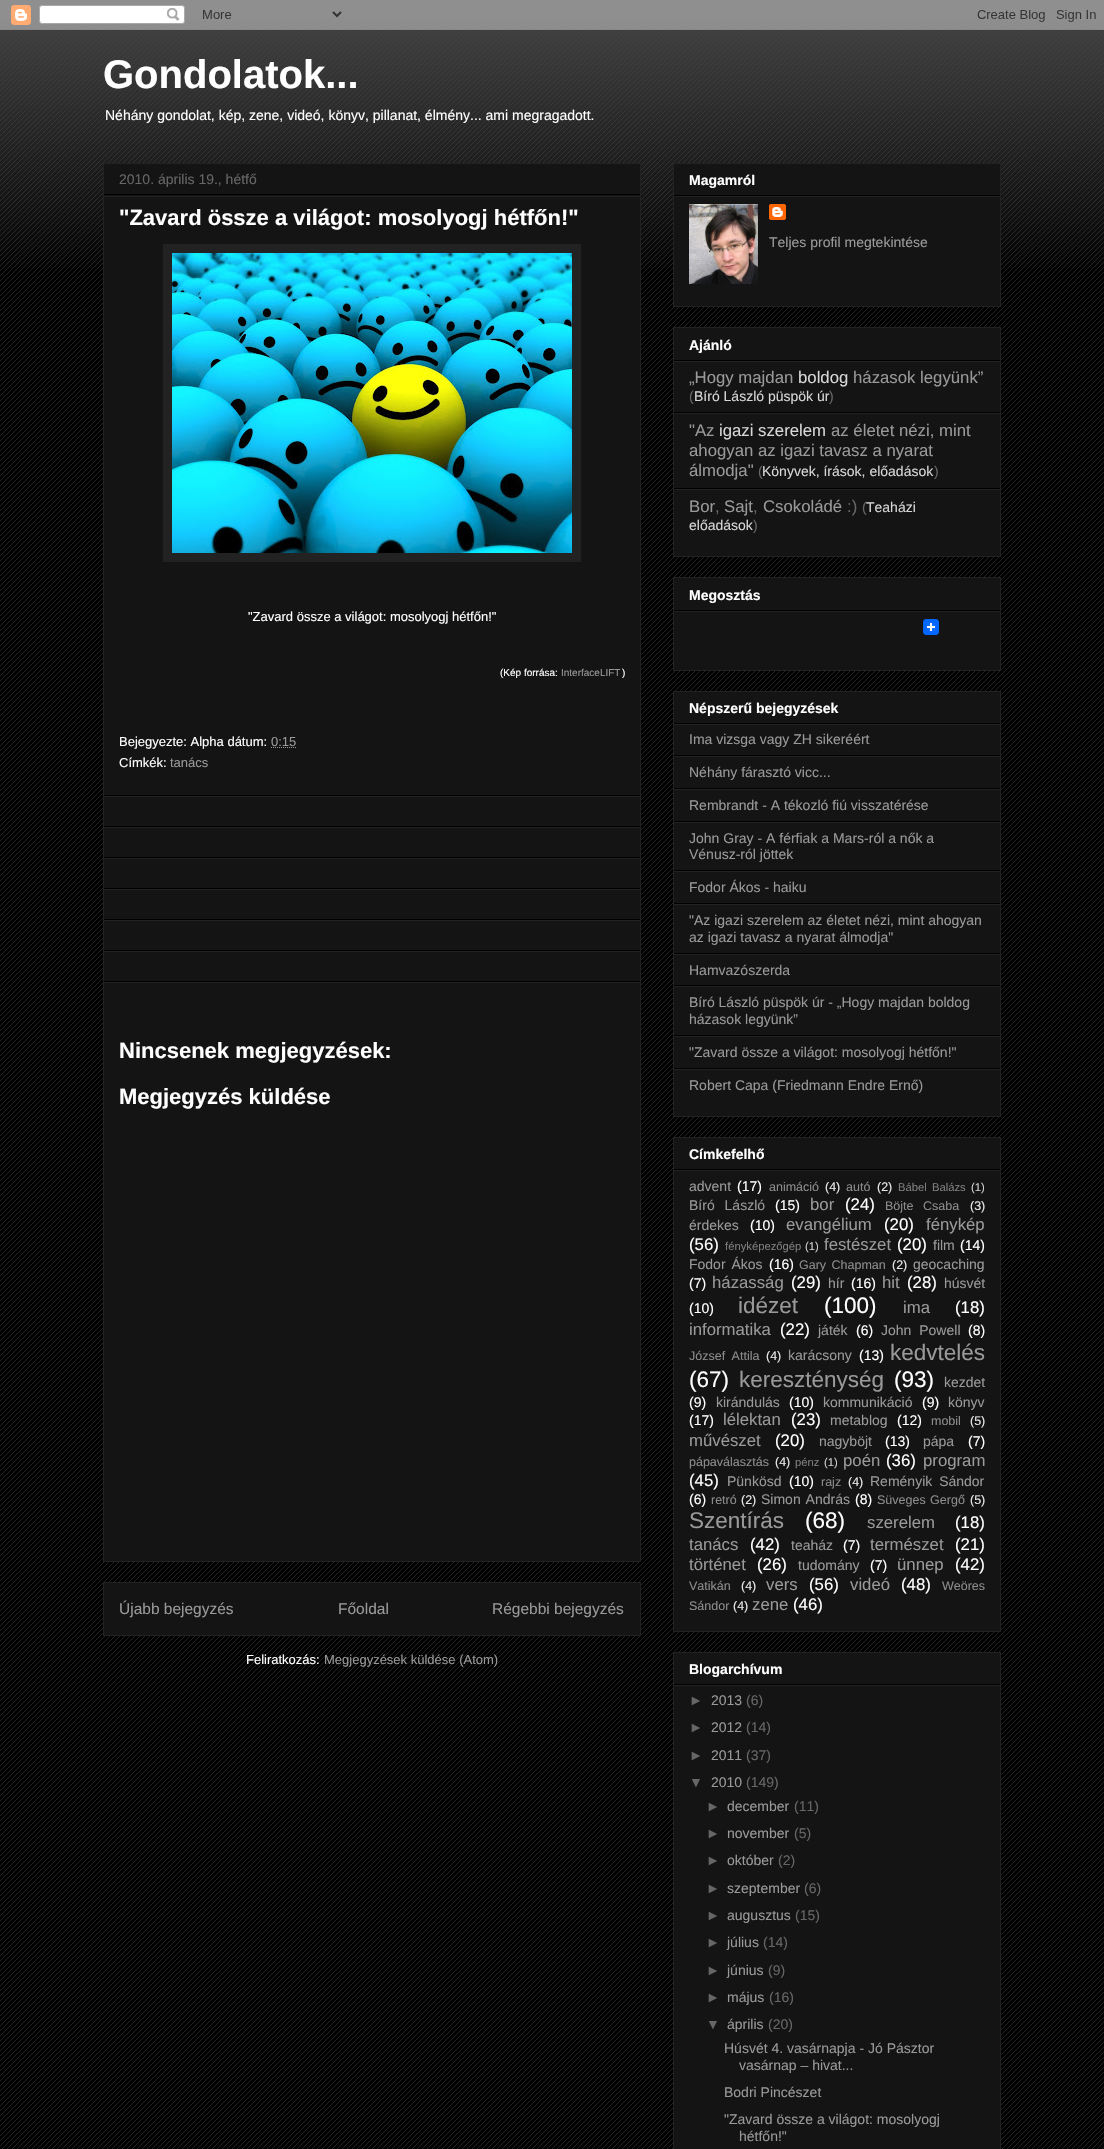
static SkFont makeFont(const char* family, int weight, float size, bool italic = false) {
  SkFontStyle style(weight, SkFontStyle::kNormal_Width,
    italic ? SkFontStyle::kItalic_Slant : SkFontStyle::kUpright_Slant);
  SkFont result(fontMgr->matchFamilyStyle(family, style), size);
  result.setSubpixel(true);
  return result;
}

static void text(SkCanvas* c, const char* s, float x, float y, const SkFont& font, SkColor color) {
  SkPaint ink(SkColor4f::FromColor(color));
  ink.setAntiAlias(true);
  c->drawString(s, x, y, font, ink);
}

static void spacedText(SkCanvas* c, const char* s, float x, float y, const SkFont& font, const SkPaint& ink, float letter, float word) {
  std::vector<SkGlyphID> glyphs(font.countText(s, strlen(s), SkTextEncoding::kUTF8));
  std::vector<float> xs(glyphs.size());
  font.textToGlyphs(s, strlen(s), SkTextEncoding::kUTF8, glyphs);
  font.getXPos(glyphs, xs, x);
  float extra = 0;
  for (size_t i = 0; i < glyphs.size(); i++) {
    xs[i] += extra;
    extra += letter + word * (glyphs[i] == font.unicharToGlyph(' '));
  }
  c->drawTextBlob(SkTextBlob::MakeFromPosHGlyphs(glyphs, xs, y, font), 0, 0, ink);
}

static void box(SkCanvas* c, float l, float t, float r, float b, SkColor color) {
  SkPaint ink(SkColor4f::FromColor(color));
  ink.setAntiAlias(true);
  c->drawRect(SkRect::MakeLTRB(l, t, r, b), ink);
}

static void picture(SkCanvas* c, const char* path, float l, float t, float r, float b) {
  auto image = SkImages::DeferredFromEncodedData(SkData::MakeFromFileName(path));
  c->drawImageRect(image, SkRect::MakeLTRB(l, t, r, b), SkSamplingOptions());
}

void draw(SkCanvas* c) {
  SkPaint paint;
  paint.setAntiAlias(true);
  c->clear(0xff000000);
  picture(c, "img_01.png", 0, 13, 1104, 2149);
  picture(c, "img_02.png", 0, 0, 1104, 268);
  picture(c, "img_03.png", 0, 0, 1104, 30);
  SkFont face1 = makeFont("Liberation Sans", 700, 40);
  text(c, "Gondolatok...", 103, 88, face1, 0xffffffff);
  SkFont face2 = makeFont("Liberation Sans", 400, 14);
  text(c, "Néhány gondolat, kép, zene, videó, könyv, pillanat, élmény... ami megragadott.", 105, 120, face2, 0xffffffff);
  paint.setColor(0xff141414);
  c->drawRect(SkRect::MakeLTRB(103.5f, 163.5f, 640.5f, 1561.5f), paint);
  paint.setStyle(SkPaint::kStroke_Style);
  paint.setStrokeWidth(1);
  paint.setColor(0xff222222);
  c->drawRect(SkRect::MakeLTRB(103.5f, 163.5f, 640.5f, 1561.5f), paint);
  box(c, 104, 194, 640, 195, 0xff000000);
  text(c, "2010. április 19., hétfő", 119, 184, face2, 0xff666666);
  box(c, 104, 196, 640, 197, 0xff222222);
  SkFont face3 = makeFont("Liberation Sans", 700, 22);
  text(c, "\"Zavard össze a világot: mosolyogj hétfőn!\"", 119, 225, face3, 0xffffffff);
  box(c, 163, 244, 581, 562, 0xff222222);
  picture(c, "img_04.png", 172, 253, 572, 553);
  SkFont face4 = makeFont("Liberation Sans", 400, 13);
  text(c, "\"Zavard össze a világot: mosolyogj hétfőn!\"", 248, 621, face4, 0xffffffff);
  SkFont face5 = makeFont("Liberation Sans", 400, 10);
  text(c, "(Kép forrása:", 500, 676, face5, 0xffffffff);
  text(c, "InterfaceLIFT", 561, 676, face5, 0xff999999);
  text(c, ")", 622, 676, face5, 0xffffffff);
  text(c, "Bejegyezte: Alpha dátum:", 119, 746, face4, 0xffffffff);
  text(c, "0:15", 271, 746, face4, 0xff999999);
  paint.setColor(0xff999999);
  paint.setPathEffect(SkDashPathEffect::Make({{1, 1}}, 0));
  c->drawPath(SkPathBuilder().moveTo(271, 747.5f).lineTo(296, 747.5f).detach(), paint);
  paint.setPathEffect(nullptr);
  text(c, "Címkék:", 119, 767, face4, 0xffffffff);
  text(c, "tanács", 170, 767, face4, 0xff999999);
  box(c, 104, 795, 640, 796, 0xff000000);
  box(c, 104, 796, 640, 797, 0xff222222);
  box(c, 104, 826, 640, 827, 0xff000000);
  box(c, 104, 827, 640, 828, 0xff222222);
  box(c, 104, 857, 640, 858, 0xff000000);
  box(c, 104, 858, 640, 859, 0xff222222);
  box(c, 104, 888, 640, 889, 0xff000000);
  box(c, 104, 889, 640, 890, 0xff222222);
  box(c, 104, 919, 640, 920, 0xff000000);
  box(c, 104, 920, 640, 921, 0xff222222);
  box(c, 104, 950, 640, 951, 0xff000000);
  box(c, 104, 951, 640, 952, 0xff222222);
  box(c, 104, 981, 640, 982, 0xff000000);
  box(c, 104, 982, 640, 983, 0xff222222);
  text(c, "Nincsenek megjegyzések:", 119, 1058, face3, 0xffffffff);
  text(c, "Megjegyzés küldése", 119, 1104, face3, 0xffffffff);
  paint.setStyle(SkPaint::kFill_Style);
  paint.setColor(0xff141414);
  c->drawRect(SkRect::MakeLTRB(103.5f, 1582.5f, 640.5f, 1635.5f), paint);
  paint.setStyle(SkPaint::kStroke_Style);
  paint.setColor(0xff222222);
  c->drawRect(SkRect::MakeLTRB(103.5f, 1582.5f, 640.5f, 1635.5f), paint);
  SkFont face6 = makeFont("Liberation Sans", 400, 15.5f);
  text(c, "Újabb bejegyzés", 119, 1614, face6, 0xff999999);
  text(c, "Főoldal", 338, 1614, face6, 0xff999999);
  text(c, "Régebbi bejegyzés", 492, 1614, face6, 0xff999999);
  text(c, "Feliratkozás:", 246, 1664, face4, 0xffffffff);
  text(c, "Megjegyzések küldése (Atom)", 324, 1664, face4, 0xff999999);
  paint.setStyle(SkPaint::kFill_Style);
  paint.setColor(0xff141414);
  c->drawRect(SkRect::MakeLTRB(673.5f, 163.5f, 1000.5f, 306.5f), paint);
  paint.setStyle(SkPaint::kStroke_Style);
  paint.setColor(0xff222222);
  c->drawRect(SkRect::MakeLTRB(673.5f, 163.5f, 1000.5f, 306.5f), paint);
  box(c, 674, 195, 1000, 196, 0xff000000);
  SkFont face7 = makeFont("Liberation Sans", 700, 14);
  text(c, "Magamról", 689, 185, face7, 0xffffffff);
  box(c, 674, 196, 1000, 197, 0xff222222);
  picture(c, "img_05.png", 689, 204, 758, 284);
  picture(c, "img_06.png", 769, 204, 786, 220);
  text(c, "Teljes profil megtekintése", 769, 247, face2, 0xff999999);
  paint.setStyle(SkPaint::kFill_Style);
  paint.setColor(0xff141414);
  c->drawRect(SkRect::MakeLTRB(673.5f, 327.5f, 1000.5f, 556.5f), paint);
  paint.setStyle(SkPaint::kStroke_Style);
  paint.setColor(0xff222222);
  c->drawRect(SkRect::MakeLTRB(673.5f, 327.5f, 1000.5f, 556.5f), paint);
  box(c, 674, 360, 1000, 361, 0xff000000);
  text(c, "Ajánló", 689, 350, face7, 0xffffffff);
  box(c, 674, 361, 1000, 362, 0xff222222);
  box(c, 674, 412, 1000, 413, 0xff000000);
  SkFont face8 = makeFont("Liberation Sans", 400, 16.75f);
  text(c, "„Hogy majdan", 689, 383, face8, 0xff999999);
  text(c, "boldog", 798, 383, face8, 0xffd7d7d7);
  text(c, "házasok legyünk”", 853, 383, face8, 0xff999999);
  text(c, "(", 689, 401, face2, 0xff666666);
  text(c, "Bíró László püspök úr", 694, 401, face2, 0xffd7d7d7);
  text(c, ")", 829, 401, face2, 0xff666666);
  box(c, 674, 413, 1000, 414, 0xff222222);
  box(c, 674, 488, 1000, 489, 0xff000000);
  text(c, "\"Az", 689, 436, face8, 0xff999999);
  text(c, "igazi szerelem", 719, 436, face8, 0xffd7d7d7);
  text(c, "az életet nézi, mint", 831, 436, face8, 0xff999999);
  text(c, "ahogyan az igazi tavasz a nyarat", 689, 456, face8, 0xff999999);
  text(c, "álmodja\"", 689, 476, face8, 0xff999999);
  text(c, "(", 758, 476, face2, 0xff666666);
  text(c, "Könyvek, írások, előadások", 762, 476, face2, 0xffd7d7d7);
  text(c, ")", 934, 476, face2, 0xff666666);
  box(c, 674, 489, 1000, 490, 0xff222222);
  text(c, "Bor", 689, 512, face8, 0xff999999);
  text(c, ",", 715, 512, face8, 0xff666666);
  text(c, "Sajt", 724, 512, face8, 0xff999999);
  text(c, ",", 753, 512, face8, 0xff666666);
  text(c, "Csokoládé", 763, 512, face8, 0xff999999);
  text(c, ":)", 847, 512, face8, 0xff666666);
  text(c, "(", 862, 512, face2, 0xff666666);
  text(c, "Teaházi", 866, 512, face2, 0xffd7d7d7);
  text(c, "előadások", 689, 530, face2, 0xffd7d7d7);
  text(c, ")", 753, 530, face2, 0xff666666);
  paint.setStyle(SkPaint::kFill_Style);
  paint.setColor(0xff141414);
  c->drawRect(SkRect::MakeLTRB(673.5f, 577.5f, 1000.5f, 670.5f), paint);
  paint.setStyle(SkPaint::kStroke_Style);
  paint.setColor(0xff222222);
  c->drawRect(SkRect::MakeLTRB(673.5f, 577.5f, 1000.5f, 670.5f), paint);
  box(c, 674, 610, 1000, 611, 0xff000000);
  text(c, "Megosztás", 689, 600, face7, 0xffffffff);
  box(c, 674, 611, 1000, 612, 0xff222222);
  picture(c, "img_07.png", 923, 619, 939, 635);
  paint.setStyle(SkPaint::kFill_Style);
  paint.setColor(0xff141414);
  c->drawRect(SkRect::MakeLTRB(673.5f, 691.5f, 1000.5f, 1116.5f), paint);
  paint.setStyle(SkPaint::kStroke_Style);
  paint.setColor(0xff222222);
  c->drawRect(SkRect::MakeLTRB(673.5f, 691.5f, 1000.5f, 1116.5f), paint);
  box(c, 674, 723, 1000, 724, 0xff000000);
  text(c, "Népszerű bejegyzések", 689, 713, face7, 0xffffffff);
  box(c, 674, 724, 1000, 725, 0xff222222);
  box(c, 674, 755, 1000, 756, 0xff000000);
  text(c, "Ima vizsga vagy ZH sikeréért", 689, 744, face2, 0xff999999);
  box(c, 674, 756, 1000, 757, 0xff222222);
  box(c, 674, 788, 1000, 789, 0xff000000);
  text(c, "Néhány fárasztó vicc...", 689, 777, face2, 0xff999999);
  box(c, 674, 789, 1000, 790, 0xff222222);
  box(c, 674, 821, 1000, 822, 0xff000000);
  text(c, "Rembrandt - A tékozló fiú visszatérése", 689, 810, face2, 0xff999999);
  box(c, 674, 822, 1000, 823, 0xff222222);
  box(c, 674, 870, 1000, 871, 0xff000000);
  text(c, "John Gray - A férfiak a Mars-ról a nők a", 689, 843, face2, 0xff999999);
  text(c, "Vénusz-ról jöttek", 689, 859, face2, 0xff999999);
  box(c, 674, 871, 1000, 872, 0xff222222);
  box(c, 674, 903, 1000, 904, 0xff000000);
  text(c, "Fodor Ákos - haiku", 689, 892, face2, 0xff999999);
  box(c, 674, 904, 1000, 905, 0xff222222);
  box(c, 674, 953, 1000, 954, 0xff000000);
  text(c, "\"Az igazi szerelem az életet nézi, mint ahogyan", 689, 925, face2, 0xff999999);
  text(c, "az igazi tavasz a nyarat álmodja\"", 689, 942, face2, 0xff999999);
  box(c, 674, 954, 1000, 955, 0xff222222);
  box(c, 674, 985, 1000, 986, 0xff000000);
  text(c, "Hamvazószerda", 689, 975, face2, 0xff999999);
  box(c, 674, 986, 1000, 987, 0xff222222);
  box(c, 674, 1035, 1000, 1036, 0xff000000);
  text(c, "Bíró László püspök úr - „Hogy majdan boldog", 689, 1007, face2, 0xff999999);
  text(c, "házasok legyünk”", 689, 1024, face2, 0xff999999);
  box(c, 674, 1036, 1000, 1037, 0xff222222);
  box(c, 674, 1068, 1000, 1069, 0xff000000);
  text(c, "\"Zavard össze a világot: mosolyogj hétfőn!\"", 689, 1057, face2, 0xff999999);
  box(c, 674, 1069, 1000, 1070, 0xff222222);
  text(c, "Robert Capa (Friedmann Endre Ernő)", 689, 1090, face2, 0xff999999);
  paint.setStyle(SkPaint::kFill_Style);
  paint.setColor(0xff141414);
  c->drawRect(SkRect::MakeLTRB(673.5f, 1137.5f, 1000.5f, 1631.5f), paint);
  paint.setStyle(SkPaint::kStroke_Style);
  paint.setColor(0xff222222);
  c->drawRect(SkRect::MakeLTRB(673.5f, 1137.5f, 1000.5f, 1631.5f), paint);
  box(c, 674, 1169, 1000, 1170, 0xff000000);
  text(c, "Címkefelhő", 689, 1159, face7, 0xffffffff);
  box(c, 674, 1170, 1000, 1171, 0xff222222);
  text(c, "advent", 689, 1191, face2, 0xff999999);
  text(c, "(17)", 737, 1191, face2, 0xffffffff);
  SkFont face9 = makeFont("Liberation Sans", 400, 12.5f);
  text(c, "animáció", 769, 1191, face9, 0xff8c8c8c);
  text(c, "(4)", 825, 1191, face9, 0xffe8e8e8);
  text(c, "autó", 846, 1191, face9, 0xff8c8c8c);
  text(c, "(2)", 877, 1191, face9, 0xffe8e8e8);
  SkFont face10 = makeFont("Liberation Sans", 400, 11.25f);
  paint.setStyle(SkPaint::kFill_Style);
  paint.setColor(0xff7e7e7e);
  spacedText(c, "Bábel Balázs", 898, 1191, face10, paint, 0, 2);
  text(c, "(1)", 971, 1191, face10, 0xffd0d0d0);
  paint.setColor(0xff999999);
  spacedText(c, "Bíró László", 689, 1210, face2, paint, 0, 6);
  text(c, "(15)", 775, 1210, face2, 0xffffffff);
  text(c, "bor", 810, 1210, face8, 0xff999999);
  text(c, "(24)", 845, 1210, face8, 0xffffffff);
  paint.setColor(0xff8c8c8c);
  spacedText(c, "Böjte Csaba", 885, 1210, face9, paint, 0, 6);
  text(c, "(3)", 970, 1210, face9, 0xffe8e8e8);
  text(c, "érdekes", 689, 1230, face2, 0xff999999);
  text(c, "(10)", 750, 1230, face2, 0xffffffff);
  text(c, "evangélium", 786, 1230, face8, 0xff999999);
  text(c, "(20)", 884, 1230, face8, 0xffffffff);
  text(c, "fénykép", 926, 1230, face8, 0xff999999);
  text(c, "(56)", 689, 1250, face8, 0xffffffff);
  text(c, "fényképezőgép", 725, 1250, face10, 0xff7e7e7e);
  text(c, "(1)", 805, 1250, face10, 0xffd0d0d0);
  text(c, "festészet", 824, 1250, face8, 0xff999999);
  text(c, "(20)", 897, 1250, face8, 0xffffffff);
  text(c, "film", 933, 1250, face2, 0xff999999);
  text(c, "(14)", 960, 1250, face2, 0xffffffff);
  paint.setColor(0xff999999);
  spacedText(c, "Fodor Ákos", 689, 1269, face2, paint, 0, 2);
  text(c, "(16)", 769, 1269, face2, 0xffffffff);
  paint.setColor(0xff8c8c8c);
  spacedText(c, "Gary Chapman", 799, 1269, face9, paint, 0, 2);
  text(c, "(2)", 892, 1269, face9, 0xffe8e8e8);
  text(c, "geocaching", 913, 1269, face2, 0xff999999);
  text(c, "(7)", 689, 1288, face2, 0xffffffff);
  text(c, "házasság", 712, 1288, face8, 0xff999999);
  text(c, "(29)", 791, 1288, face8, 0xffffffff);
  text(c, "hír", 828, 1288, face2, 0xff999999);
  text(c, "(16)", 851, 1288, face2, 0xffffffff);
  text(c, "hit", 882, 1288, face8, 0xff999999);
  text(c, "(28)", 907, 1288, face8, 0xffffffff);
  text(c, "húsvét", 944, 1288, face2, 0xff999999);
  text(c, "(10)", 689, 1313, face2, 0xffffffff);
  SkFont face11 = makeFont("Liberation Sans", 400, 22.5f);
  text(c, "idézet", 738, 1313, face11, 0xff999999);
  text(c, "(100)", 824, 1313, face11, 0xffffffff);
  text(c, "ima", 903, 1313, face8, 0xff999999);
  text(c, "(18)", 955, 1313, face8, 0xffffffff);
  text(c, "informatika", 689, 1335, face8, 0xff999999);
  text(c, "(22)", 780, 1335, face8, 0xffffffff);
  text(c, "játék", 818, 1335, face2, 0xff999999);
  text(c, "(6)", 856, 1335, face2, 0xffffffff);
  paint.setColor(0xff999999);
  spacedText(c, "John Powell", 881, 1335, face2, paint, 0, 4);
  text(c, "(8)", 968, 1335, face2, 0xffffffff);
  paint.setColor(0xff8c8c8c);
  spacedText(c, "József Attila", 689, 1360, face9, paint, 0, 3);
  text(c, "(4)", 766, 1360, face9, 0xffe8e8e8);
  text(c, "karácsony", 788, 1360, face2, 0xff999999);
  text(c, "(13)", 859, 1360, face2, 0xffffffff);
  text(c, "kedvtelés", 890, 1360, face11, 0xff999999);
  text(c, "(67)", 689, 1387, face11, 0xffffffff);
  text(c, "kereszténység", 739, 1387, face11, 0xff999999);
  text(c, "(93)", 894, 1387, face11, 0xffffffff);
  text(c, "kezdet", 944, 1387, face2, 0xff999999);
  text(c, "(9)", 689, 1407, face2, 0xffffffff);
  text(c, "kirándulás", 716, 1407, face2, 0xff999999);
  text(c, "(10)", 789, 1407, face2, 0xffffffff);
  text(c, "kommunikáció", 823, 1407, face2, 0xff999999);
  text(c, "(9)", 922, 1407, face2, 0xffffffff);
  text(c, "könyv", 948, 1407, face2, 0xff999999);
  text(c, "(17)", 689, 1425, face2, 0xffffffff);
  text(c, "lélektan", 723, 1425, face8, 0xff999999);
  text(c, "(23)", 791, 1425, face8, 0xffffffff);
  text(c, "metablog", 830, 1425, face2, 0xff999999);
  text(c, "(12)", 897, 1425, face2, 0xffffffff);
  text(c, "mobil", 931, 1425, face9, 0xff8c8c8c);
  text(c, "(5)", 970, 1425, face9, 0xffe8e8e8);
  text(c, "művészet", 689, 1446, face8, 0xff999999);
  text(c, "(20)", 775, 1446, face8, 0xffffffff);
  text(c, "nagyböjt", 819, 1446, face2, 0xff999999);
  text(c, "(13)", 885, 1446, face2, 0xffffffff);
  text(c, "pápa", 923, 1446, face2, 0xff999999);
  text(c, "(7)", 968, 1446, face2, 0xffffffff);
  text(c, "pápaválasztás", 689, 1466, face9, 0xff8c8c8c);
  text(c, "(4)", 775, 1466, face9, 0xffe8e8e8);
  text(c, "pénz", 795, 1466, face10, 0xff7e7e7e);
  text(c, "(1)", 824, 1466, face10, 0xffd0d0d0);
  text(c, "poén", 843, 1466, face8, 0xff999999);
  text(c, "(36)", 886, 1466, face8, 0xffffffff);
  text(c, "program", 923, 1466, face8, 0xff999999);
  text(c, "(45)", 689, 1486, face8, 0xffffffff);
  text(c, "Pünkösd", 727, 1486, face2, 0xff999999);
  text(c, "(10)", 789, 1486, face2, 0xffffffff);
  text(c, "rajz", 821, 1486, face9, 0xff8c8c8c);
  text(c, "(4)", 848, 1486, face9, 0xffe8e8e8);
  paint.setColor(0xff999999);
  spacedText(c, "Reményik Sándor", 870, 1486, face2, paint, 0, 3);
  text(c, "(6)", 689, 1504, face2, 0xffffffff);
  text(c, "retró", 711, 1504, face9, 0xff8c8c8c);
  text(c, "(2)", 741, 1504, face9, 0xffe8e8e8);
  spacedText(c, "Simon András", 761, 1504, face2, paint, 0, 1);
  text(c, "(8)", 855, 1504, face2, 0xffffffff);
  paint.setColor(0xff8c8c8c);
  spacedText(c, "Süveges Gergő", 877, 1504, face9, paint, 0, 1);
  text(c, "(5)", 970, 1504, face9, 0xffe8e8e8);
  text(c, "Szentírás", 689, 1528, face11, 0xff999999);
  text(c, "(68)", 805, 1528, face11, 0xffffffff);
  text(c, "szerelem", 867, 1528, face8, 0xff999999);
  text(c, "(18)", 955, 1528, face8, 0xffffffff);
  text(c, "tanács", 689, 1550, face8, 0xff999999);
  text(c, "(42)", 750, 1550, face8, 0xffffffff);
  text(c, "teaház", 791, 1550, face2, 0xff999999);
  text(c, "(7)", 843, 1550, face2, 0xffffffff);
  text(c, "természet", 870, 1550, face8, 0xff999999);
  text(c, "(21)", 955, 1550, face8, 0xffffffff);
  text(c, "történet", 689, 1570, face8, 0xff999999);
  text(c, "(26)", 757, 1570, face8, 0xffffffff);
  text(c, "tudomány", 798, 1570, face2, 0xff999999);
  text(c, "(7)", 870, 1570, face2, 0xffffffff);
  text(c, "ünnep", 897, 1570, face8, 0xff999999);
  text(c, "(42)", 955, 1570, face8, 0xffffffff);
  text(c, "Vatikán", 689, 1590, face9, 0xff8c8c8c);
  text(c, "(4)", 741, 1590, face9, 0xffe8e8e8);
  text(c, "vers", 766, 1590, face8, 0xff999999);
  text(c, "(56)", 809, 1590, face8, 0xffffffff);
  text(c, "videó", 850, 1590, face8, 0xff999999);
  text(c, "(48)", 901, 1590, face8, 0xffffffff);
  text(c, "Weöres", 942, 1590, face9, 0xff8c8c8c);
  text(c, "Sándor", 689, 1610, face9, 0xff8c8c8c);
  text(c, "(4)", 733, 1610, face9, 0xffe8e8e8);
  text(c, "zene", 752, 1610, face8, 0xff999999);
  text(c, "(46)", 793, 1610, face8, 0xffffffff);
  paint.setColor(0xff141414);
  c->drawRect(SkRect::MakeLTRB(673.5f, 1652.5f, 1000.5f, 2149.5f), paint);
  paint.setStyle(SkPaint::kStroke_Style);
  paint.setColor(0xff222222);
  c->drawRect(SkRect::MakeLTRB(673.5f, 1652.5f, 1000.5f, 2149.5f), paint);
  box(c, 674, 1684, 1000, 1685, 0xff000000);
  text(c, "Blogarchívum", 689, 1674, face7, 0xffffffff);
  box(c, 674, 1685, 1000, 1686, 0xff222222);
  text(c, "►", 689, 1705, face2, 0xff666666);
  text(c, "2013", 711, 1705, face2, 0xff999999);
  text(c, "(6)", 746, 1705, face2, 0xff666666);
  text(c, "►", 689, 1732, face2, 0xff666666);
  text(c, "2012", 711, 1732, face2, 0xff999999);
  text(c, "(14)", 746, 1732, face2, 0xff666666);
  text(c, "►", 689, 1760, face2, 0xff666666);
  text(c, "2011", 711, 1760, face2, 0xff999999);
  text(c, "(37)", 746, 1760, face2, 0xff666666);
  text(c, "▼", 689, 1787, face2, 0xff666666);
  text(c, "2010", 711, 1787, face2, 0xff999999);
  text(c, "(149)", 746, 1787, face2, 0xff666666);
  text(c, "►", 706, 1811, face2, 0xff666666);
  text(c, "december", 727, 1811, face2, 0xff999999);
  text(c, "(11)", 794, 1811, face2, 0xff666666);
  text(c, "►", 706, 1838, face2, 0xff666666);
  text(c, "november", 727, 1838, face2, 0xff999999);
  text(c, "(5)", 794, 1838, face2, 0xff666666);
  text(c, "►", 706, 1865, face2, 0xff666666);
  text(c, "október", 727, 1865, face2, 0xff999999);
  text(c, "(2)", 778, 1865, face2, 0xff666666);
  text(c, "►", 706, 1893, face2, 0xff666666);
  text(c, "szeptember", 727, 1893, face2, 0xff999999);
  text(c, "(6)", 804, 1893, face2, 0xff666666);
  text(c, "►", 706, 1920, face2, 0xff666666);
  text(c, "augusztus", 727, 1920, face2, 0xff999999);
  text(c, "(15)", 795, 1920, face2, 0xff666666);
  text(c, "►", 706, 1947, face2, 0xff666666);
  text(c, "július", 727, 1947, face2, 0xff999999);
  text(c, "(14)", 763, 1947, face2, 0xff666666);
  text(c, "►", 706, 1975, face2, 0xff666666);
  text(c, "június", 727, 1975, face2, 0xff999999);
  text(c, "(9)", 768, 1975, face2, 0xff666666);
  text(c, "►", 706, 2002, face2, 0xff666666);
  text(c, "május", 727, 2002, face2, 0xff999999);
  text(c, "(16)", 769, 2002, face2, 0xff666666);
  text(c, "▼", 706, 2029, face2, 0xff666666);
  text(c, "április", 727, 2029, face2, 0xff999999);
  text(c, "(20)", 768, 2029, face2, 0xff666666);
  text(c, "Húsvét 4. vasárnapja - Jó Pásztor", 724, 2053, face2, 0xff999999);
  text(c, "vasárnap – hivat...", 739, 2070, face2, 0xff999999);
  text(c, "Bodri Pincészet", 724, 2097, face2, 0xff999999);
  text(c, "\"Zavard össze a világot: mosolyogj", 724, 2124, face2, 0xff999999);
  text(c, "hétfőn!\"", 739, 2141, face2, 0xff999999);
}
